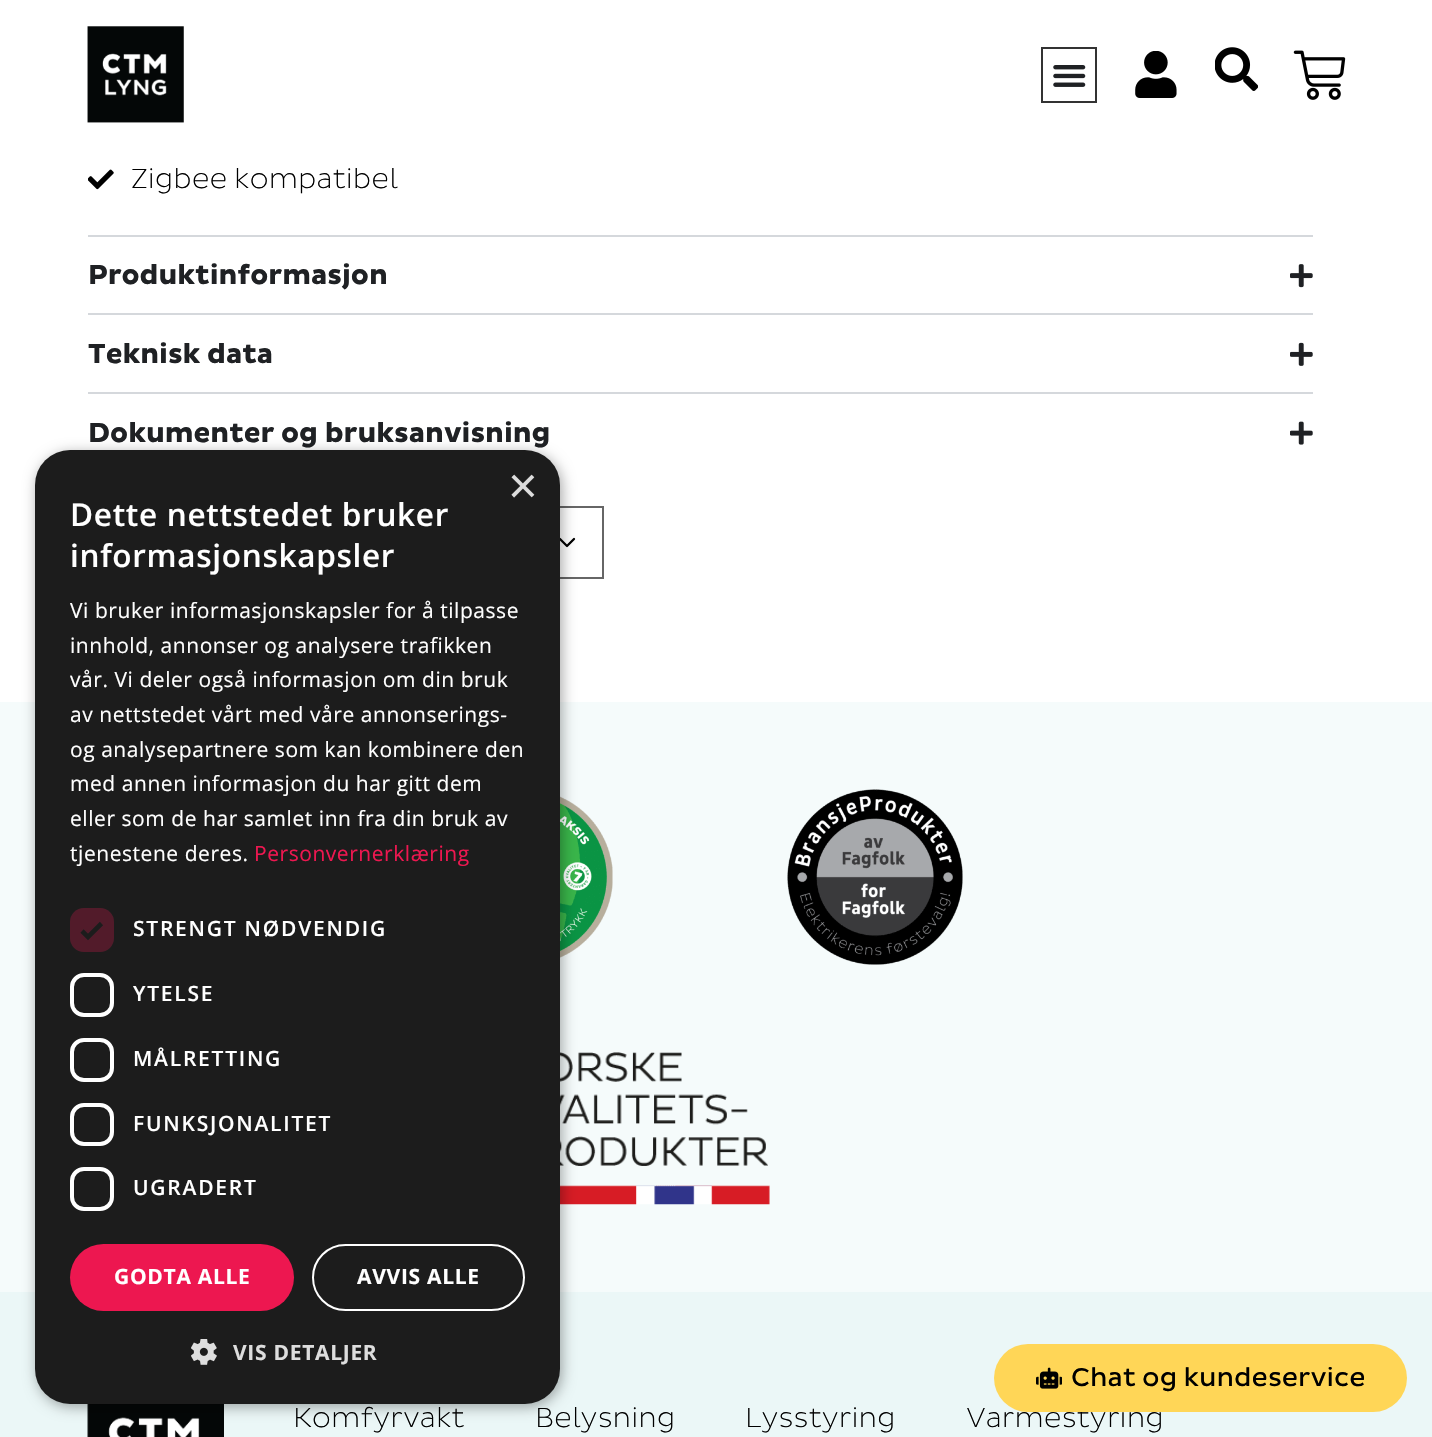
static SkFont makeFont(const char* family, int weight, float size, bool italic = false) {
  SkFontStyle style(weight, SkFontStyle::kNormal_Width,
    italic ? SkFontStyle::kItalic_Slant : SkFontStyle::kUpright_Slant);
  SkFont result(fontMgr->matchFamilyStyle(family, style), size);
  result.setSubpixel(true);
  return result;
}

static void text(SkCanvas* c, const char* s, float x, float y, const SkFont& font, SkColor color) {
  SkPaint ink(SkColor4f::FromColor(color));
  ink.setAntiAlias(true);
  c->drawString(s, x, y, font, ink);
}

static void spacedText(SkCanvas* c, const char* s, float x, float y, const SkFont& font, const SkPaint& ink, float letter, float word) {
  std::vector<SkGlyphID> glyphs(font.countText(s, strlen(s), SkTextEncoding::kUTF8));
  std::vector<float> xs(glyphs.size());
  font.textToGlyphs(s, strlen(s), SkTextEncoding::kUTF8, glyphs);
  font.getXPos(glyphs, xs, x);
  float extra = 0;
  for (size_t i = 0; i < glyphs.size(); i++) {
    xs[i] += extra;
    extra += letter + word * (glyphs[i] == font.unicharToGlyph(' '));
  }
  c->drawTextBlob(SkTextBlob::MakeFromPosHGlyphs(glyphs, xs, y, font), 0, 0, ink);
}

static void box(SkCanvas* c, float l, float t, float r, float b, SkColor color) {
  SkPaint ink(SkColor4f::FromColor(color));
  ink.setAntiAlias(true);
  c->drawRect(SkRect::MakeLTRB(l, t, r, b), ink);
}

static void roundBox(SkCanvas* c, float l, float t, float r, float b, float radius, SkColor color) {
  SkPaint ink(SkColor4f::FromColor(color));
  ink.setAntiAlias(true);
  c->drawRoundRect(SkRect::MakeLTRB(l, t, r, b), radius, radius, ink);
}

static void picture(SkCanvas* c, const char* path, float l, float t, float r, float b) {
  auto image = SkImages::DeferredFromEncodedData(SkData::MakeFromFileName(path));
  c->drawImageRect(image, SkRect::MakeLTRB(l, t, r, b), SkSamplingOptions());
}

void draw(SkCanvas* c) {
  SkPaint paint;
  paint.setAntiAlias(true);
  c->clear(0xffffffff);
  picture(c, "img_01.png", 87, 26, 184, 123);
  paint.setStyle(SkPaint::kStroke_Style);
  paint.setStrokeWidth(2);
  paint.setColor(0xff333333);
  c->drawRect(SkRect::MakeLTRB(1042, 48, 1096, 102), paint);
  picture(c, "img_02.png", 1053, 65, 1086, 87);
  picture(c, "img_03.png", 1135, 51, 1177, 98);
  picture(c, "img_04.png", 1215, 47, 1258, 91);
  picture(c, "img_05.png", 1293, 50, 1346, 100);
  picture(c, "img_06.png", 88, 169, 114, 190);
  SkFont face1 = makeFont("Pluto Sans", 200, 28);
  text(c, "Zigbee kompatibel", 131, 188, face1, 0xff000000);
  box(c, 88, 235, 1313, 237, 0xffd5d8dc);
  SkFont face2 = makeFont("Pluto Sans", 700, 28);
  text(c, "Produktinformasjon", 88, 284, face2, 0xff1f2124);
  picture(c, "img_07.png", 1290, 264, 1313, 288);
  box(c, 88, 313, 1313, 315, 0xffd5d8dc);
  text(c, "Teknisk data", 88, 363, face2, 0xff1f2124);
  picture(c, "img_08.png", 1290, 342, 1313, 366);
  box(c, 88, 392, 1313, 394, 0xffd5d8dc);
  text(c, "Dokumenter og bruksanvisning", 88, 442, face2, 0xff1f2124);
  picture(c, "img_09.png", 1290, 421, 1313, 445);
  paint.setStrokeWidth(2.3f);
  paint.setStrokeCap(SkPaint::kRound_Cap);
  paint.setStrokeJoin(SkPaint::kRound_Join);
  paint.setColor(0xff000000);
  c->drawPath(SkPathBuilder().moveTo(560, 539).lineTo(567, 546).lineTo(574, 539).detach(), paint);
  paint.setStrokeWidth(2);
  paint.setStrokeCap(SkPaint::kButt_Cap);
  paint.setStrokeJoin(SkPaint::kMiter_Join);
  paint.setColor(0xff666666);
  c->drawRect(SkRect::MakeLTRB(241, 507, 603, 578), paint);
  box(c, 0, 702, 1432, 1292, 0xfff5fbfb);
  picture(c, "img_11.png", 560, 796, 613, 958);
  picture(c, "img_13.png", 560, 1052, 770, 1205);
  box(c, 0, 1292, 1432, 1437, 0xffebf7f7);
  picture(c, "img_15.png", 87, 1404, 224, 1437);
  paint.setStyle(SkPaint::kFill_Style);
  paint.setColor(0x59000000);
  paint.setMaskFilter(SkMaskFilter::MakeBlur(kNormal_SkBlurStyle, 7));
  c->drawRoundRect(SkRect::MakeLTRB(37, 453, 562, 1407), 35, 35, paint);
  paint.setMaskFilter(nullptr);
  roundBox(c, 35, 450, 560, 1404, 35, 0xff1c1c1c);
  SkFont face3 = makeFont("Liberation Sans", 400, 51);
  text(c, "×", 508, 503, face3, 0xffdddddd);
  SkFont face4 = makeFont("Open Sans", 600, 31.5f);
  paint.setColor(0xffffffff);
  spacedText(c, "Dette nettstedet bruker", 70, 526, face4, paint, 0.7f, 0);
  spacedText(c, "informasjonskapsler", 70, 567, face4, paint, 0.7f, 0);
  SkFont face5 = makeFont("Open Sans", 400, 21);
  spacedText(c, "Vi bruker informasjonskapsler for å tilpasse", 70, 618, face5, paint, 0.55f, 0);
  spacedText(c, "innhold, annonser og analysere trafikken", 70, 653, face5, paint, 0.55f, 0);
  spacedText(c, "vår. Vi deler også informasjon om din bruk", 70, 687, face5, paint, 0.55f, 0);
  spacedText(c, "av nettstedet vårt med våre annonserings-", 70, 722, face5, paint, 0.55f, 0);
  spacedText(c, "og analysepartnere som kan kombinere den", 70, 757, face5, paint, 0.55f, 0);
  spacedText(c, "med annen informasjon du har gitt dem", 70, 791, face5, paint, 0.55f, 0);
  spacedText(c, "eller som de har samlet inn fra din bruk av", 70, 826, face5, paint, 0.55f, 0);
  spacedText(c, "tjenestene deres.", 70, 861, face5, paint, 0.55f, 0);
  paint.setColor(0xffed1750);
  spacedText(c, "Personvernerklæring", 254, 861, face5, paint, 0.55f, 0);
  roundBox(c, 70, 908, 114, 952, 14, 0xff521b2a);
  paint.setStyle(SkPaint::kStroke_Style);
  paint.setStrokeWidth(4.6f);
  paint.setColor(0xff1c1c1c);
  c->drawPath(SkPathBuilder().moveTo(82, 931).lineTo(88, 937).lineTo(101.5f, 923.5f).detach(), paint);
  SkFont face6 = makeFont("Open Sans", 600, 21);
  paint.setStyle(SkPaint::kFill_Style);
  paint.setColor(0xffffffff);
  spacedText(c, "STRENGT NØDVENDIG", 133, 936, face6, paint, 1.75f, 0);
  paint.setStyle(SkPaint::kStroke_Style);
  paint.setStrokeWidth(4);
  c->drawRoundRect(SkRect::MakeLTRB(72, 975, 112, 1015), 12, 12, paint);
  paint.setStyle(SkPaint::kFill_Style);
  spacedText(c, "YTELSE", 133, 1001, face6, paint, 1.75f, 0);
  paint.setStyle(SkPaint::kStroke_Style);
  c->drawRoundRect(SkRect::MakeLTRB(72, 1040, 112, 1080), 12, 12, paint);
  paint.setStyle(SkPaint::kFill_Style);
  spacedText(c, "MÅLRETTING", 133, 1066, face6, paint, 1.75f, 0);
  paint.setStyle(SkPaint::kStroke_Style);
  c->drawRoundRect(SkRect::MakeLTRB(72, 1105, 112, 1144), 12, 12, paint);
  paint.setStyle(SkPaint::kFill_Style);
  spacedText(c, "FUNKSJONALITET", 133, 1131, face6, paint, 1.75f, 0);
  paint.setStyle(SkPaint::kStroke_Style);
  c->drawRoundRect(SkRect::MakeLTRB(72, 1169, 112, 1209), 12, 12, paint);
  paint.setStyle(SkPaint::kFill_Style);
  spacedText(c, "UGRADERT", 133, 1195, face6, paint, 1.75f, 0);
  roundBox(c, 70, 1244, 294, 1311, 33.5f, 0xffed1750);
  SkFont face7 = makeFont("Open Sans", 700, 21);
  spacedText(c, "GODTA ALLE", 114, 1284, face7, paint, 0.7f, 0);
  paint.setStyle(SkPaint::kStroke_Style);
  paint.setStrokeWidth(2);
  c->drawRoundRect(SkRect::MakeLTRB(313, 1245, 524, 1310), 32.5f, 32.5f, paint);
  paint.setStyle(SkPaint::kFill_Style);
  spacedText(c, "AVVIS ALLE", 357, 1284, face7, paint, 0.7f, 0);
  picture(c, "img_10.png", 191, 1339, 217, 1365);
  paint.setColor(0xffdddddd);
  spacedText(c, "VIS DETALJER", 233, 1360, face7, paint, 0.7f, 0);
  picture(c, "img_12.png", 787, 789, 963, 965);
  text(c, "Varmestyring", 966, 1427, face1, 0xff000000);
  roundBox(c, 994, 1344, 1407, 1412, 34, 0xffffd657);
  picture(c, "img_14.png", 1036, 1367, 1062, 1389);
  SkFont face8 = makeFont("Pluto Sans", 400, 26.25f);
  text(c, "Chat og kundeservice", 1071, 1386, face8, 0xff000000);
  text(c, "Komfyrvakt", 293, 1427, face1, 0xff000000);
  text(c, "Belysning", 535, 1427, face1, 0xff000000);
  text(c, "Lysstyring", 745, 1427, face1, 0xff000000);
}
